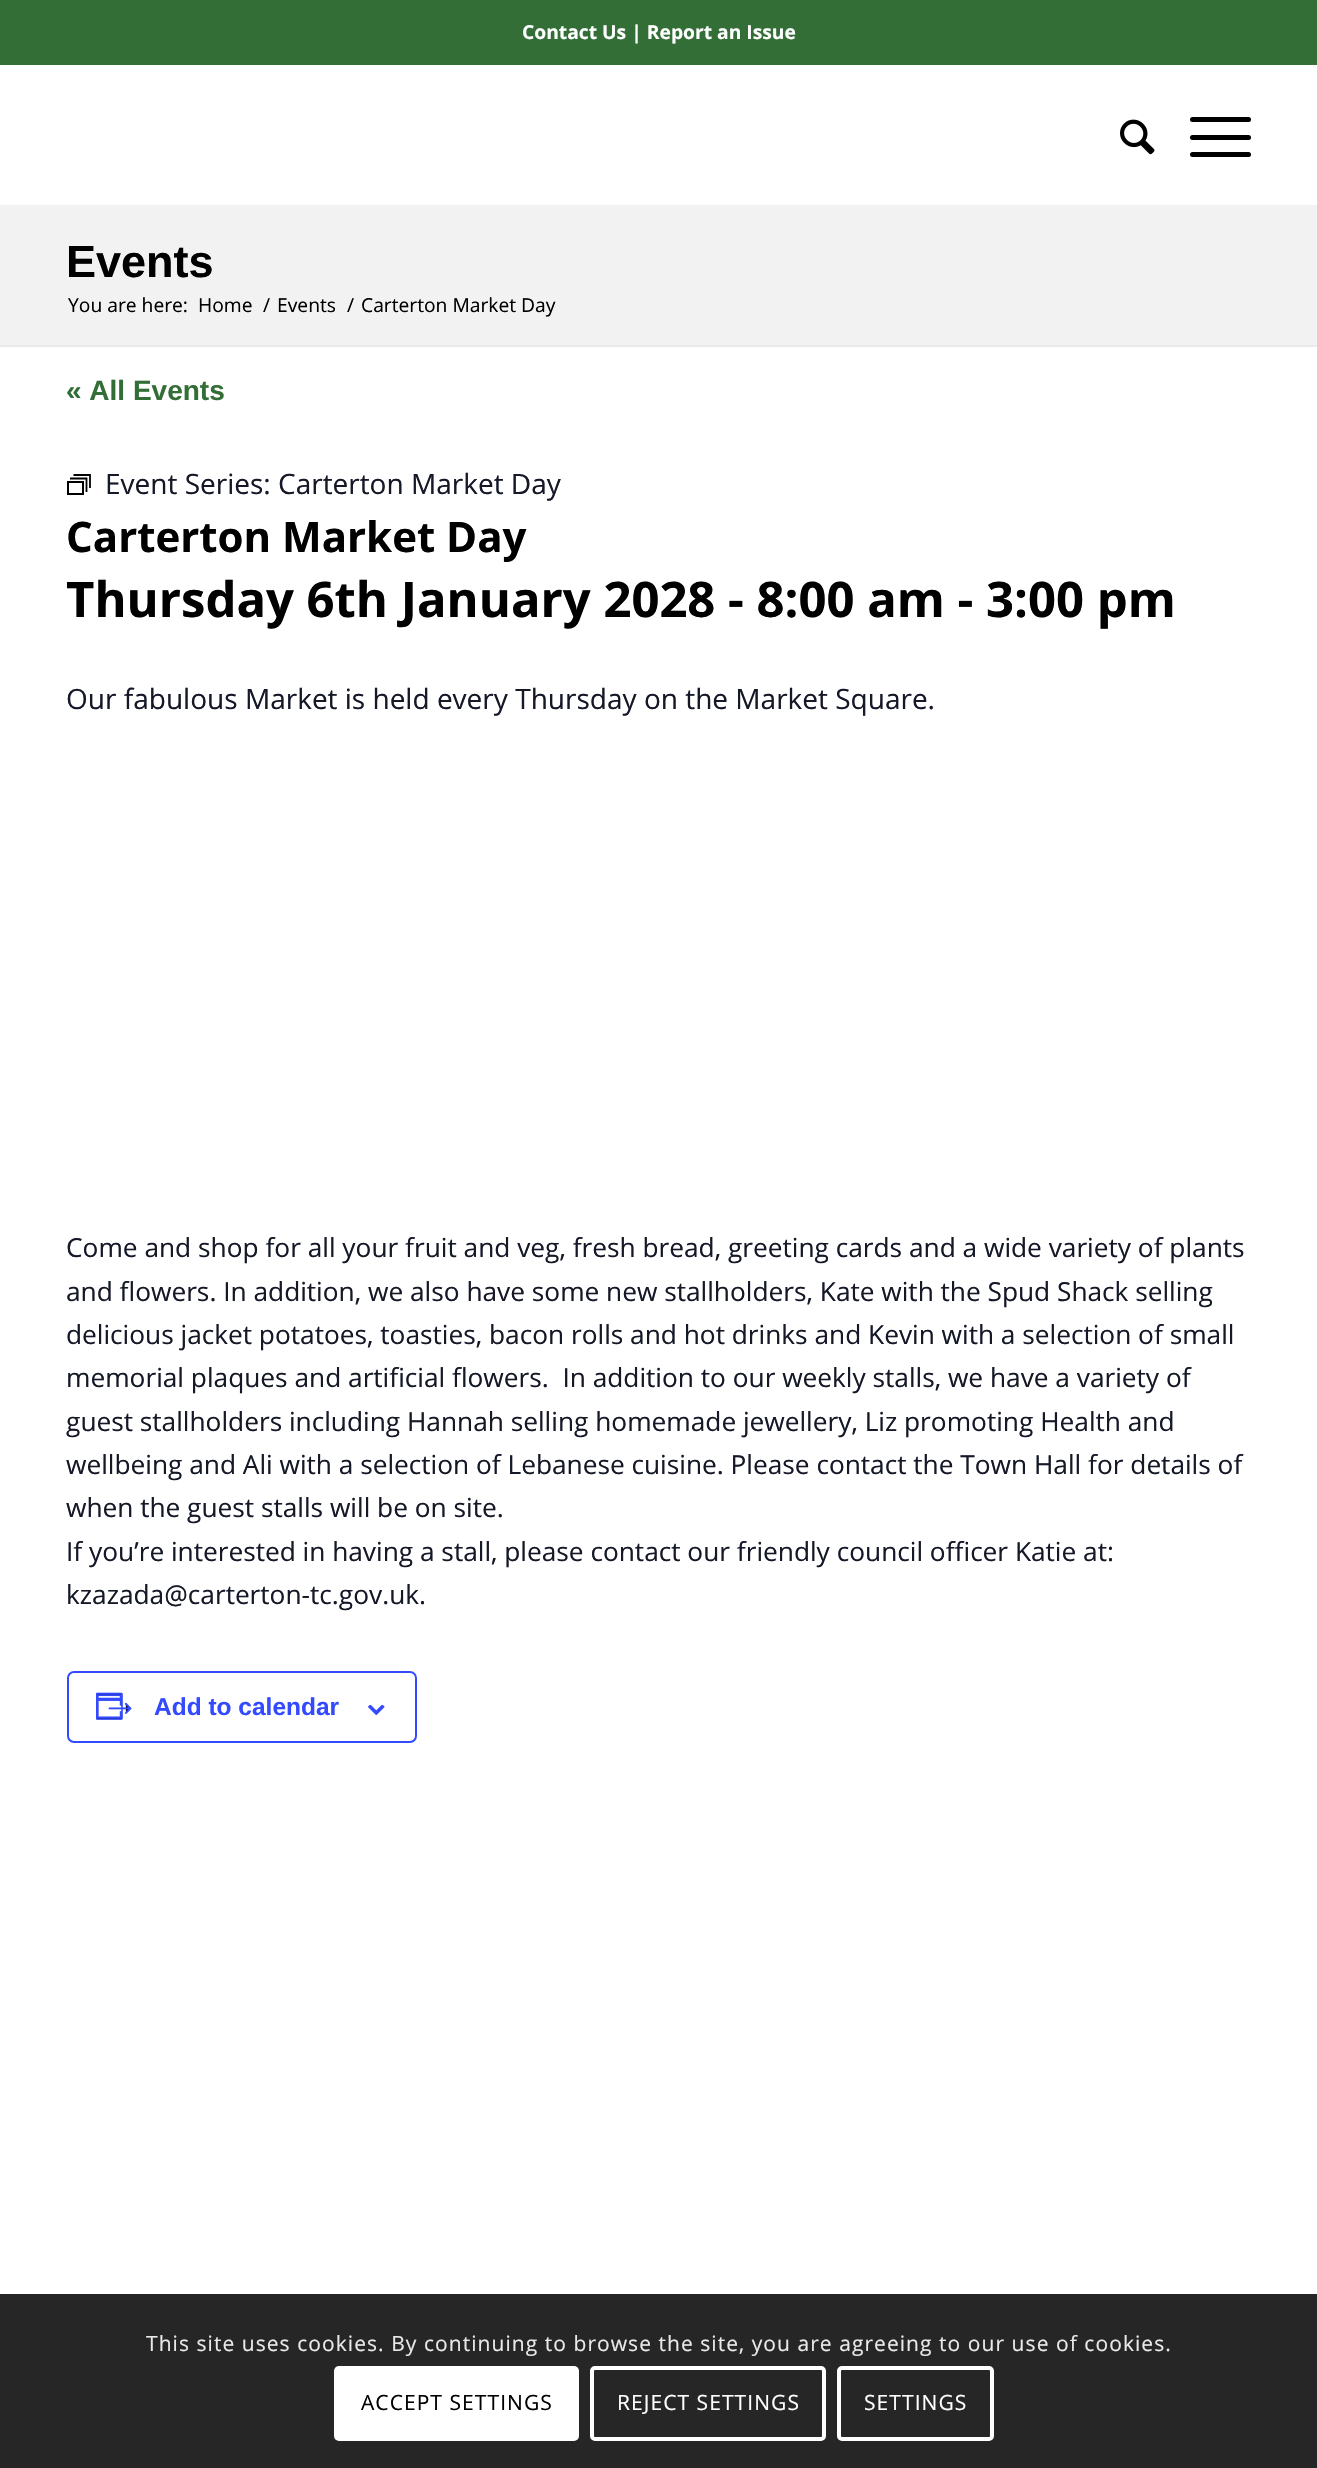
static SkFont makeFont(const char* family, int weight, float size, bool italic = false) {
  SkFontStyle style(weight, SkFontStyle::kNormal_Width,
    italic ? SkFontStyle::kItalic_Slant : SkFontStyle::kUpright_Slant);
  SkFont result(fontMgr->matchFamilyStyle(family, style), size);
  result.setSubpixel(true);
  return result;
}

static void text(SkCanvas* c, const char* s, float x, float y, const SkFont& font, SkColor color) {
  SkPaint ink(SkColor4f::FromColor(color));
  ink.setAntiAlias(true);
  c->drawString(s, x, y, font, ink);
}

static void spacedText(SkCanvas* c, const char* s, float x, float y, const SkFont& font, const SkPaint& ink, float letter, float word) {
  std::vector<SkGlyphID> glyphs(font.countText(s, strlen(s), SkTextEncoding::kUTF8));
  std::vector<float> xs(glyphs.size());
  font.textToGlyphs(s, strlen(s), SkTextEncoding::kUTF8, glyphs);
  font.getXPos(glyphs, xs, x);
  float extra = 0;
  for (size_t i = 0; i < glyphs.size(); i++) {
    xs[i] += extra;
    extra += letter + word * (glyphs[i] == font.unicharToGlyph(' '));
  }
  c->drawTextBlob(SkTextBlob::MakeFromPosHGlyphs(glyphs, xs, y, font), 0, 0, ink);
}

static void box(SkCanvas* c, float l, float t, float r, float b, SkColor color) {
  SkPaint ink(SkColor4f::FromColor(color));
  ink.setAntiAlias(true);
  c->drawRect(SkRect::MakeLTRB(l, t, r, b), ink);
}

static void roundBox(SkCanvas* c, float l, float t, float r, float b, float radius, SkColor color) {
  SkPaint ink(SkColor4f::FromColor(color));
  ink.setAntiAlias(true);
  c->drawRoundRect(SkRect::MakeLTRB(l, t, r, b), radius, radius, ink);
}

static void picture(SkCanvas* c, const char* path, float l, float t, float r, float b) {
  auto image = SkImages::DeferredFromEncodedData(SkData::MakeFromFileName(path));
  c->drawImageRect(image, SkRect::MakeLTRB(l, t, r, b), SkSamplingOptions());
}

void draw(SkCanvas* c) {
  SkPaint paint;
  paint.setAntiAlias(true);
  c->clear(0xff336e36);
  SkFont face1 = makeFont("Open Sans", 700, 19.25f);
  text(c, "Contact Us | Report an Issue", 522, 39, face1, 0xffffffff);
  box(c, 0, 65, 1317, 205, 0xffffffff);
  picture(c, "img_01.png", 1120, 119, 1155, 155);
  roundBox(c, 1190, 135, 1251, 140, 2.5f, 0xff000000);
  roundBox(c, 1190, 117, 1251, 122, 2.5f, 0xff000000);
  roundBox(c, 1190, 152, 1251, 157, 2.5f, 0xff000000);
  box(c, 0, 205, 1317, 345, 0xfff2f2f2);
  SkFont face2 = makeFont("Liberation Sans", 700, 45);
  text(c, "Events", 66, 277, face2, 0xff000000);
  SkFont face3 = makeFont("Open Sans", 400, 19.25f);
  text(c, "You are here:", 68, 312, face3, 0xff000000);
  text(c, "Home", 198, 312, face3, 0xff000000);
  text(c, "/", 263, 312, face3, 0xff000000);
  text(c, "Events", 277, 312, face3, 0xff000000);
  text(c, "/", 347, 312, face3, 0xff000000);
  text(c, "Carterton Market Day", 361, 312, face3, 0xff000000);
  box(c, 0, 347, 1317, 2468, 0xffffffff);
  box(c, 0, 345, 1317, 347, 0xffebebeb);
  SkFont face4 = makeFont("Liberation Sans", 700, 28);
  text(c, "« All Events", 66, 400, face4, 0xff336e36);
  paint.setStyle(SkPaint::kStroke_Style);
  paint.setStrokeWidth(2);
  paint.setColor(0xff000000);
  c->drawRect(SkRect::MakeLTRB(68, 482, 83, 494), paint);
  paint.setStrokeWidth(1.8f);
  c->drawPath(SkPathBuilder().moveTo(70, 478.5f).lineTo(86.5f, 478.5f).lineTo(86.5f, 492).moveTo(73.5f, 475).lineTo(90, 475).lineTo(90, 488).detach(), paint);
  SkFont face5 = makeFont("Open Sans", 400, 28);
  text(c, "Event Series: Carterton Market Day", 105, 494, face5, 0xff141827);
  SkFont face6 = makeFont("Open Sans", 700, 42);
  text(c, "Carterton Market Day", 66, 552, face6, 0xff000000);
  SkFont face7 = makeFont("Open Sans", 700, 49);
  text(c, "Thursday 6th January 2028 - 8:00 am - 3:00 pm", 66, 617, face7, 0xff000000);
  text(c, "Our fabulous Market is held every Thursday on the Market Square.", 66, 709, face5, 0xff141827);
  SkFont face8 = makeFont("Open Sans", 400, 26.25f);
  text(c, "Come and shop for all your fruit and veg, fresh bread, greeting cards and a wide variety of plants", 66, 1257, face8, 0xff141827);
  text(c, "and flowers. In addition, we also have some new stallholders, Kate with the Spud Shack selling", 66, 1301, face8, 0xff141827);
  text(c, "delicious jacket potatoes, toasties, bacon rolls and hot drinks and Kevin with a selection of small", 66, 1344, face8, 0xff141827);
  text(c, "memorial plaques and artificial flowers.  In addition to our weekly stalls, we have a variety of", 66, 1387, face8, 0xff141827);
  text(c, "guest stallholders including Hannah selling homemade jewellery, Liz promoting Health and", 66, 1431, face8, 0xff141827);
  text(c, "wellbeing and Ali with a selection of Lebanese cuisine. Please contact the Town Hall for details of", 66, 1474, face8, 0xff141827);
  text(c, "when the guest stalls will be on site.", 66, 1517, face8, 0xff141827);
  text(c, "If you’re interested in having a stall, please contact our friendly council officer Katie at:", 66, 1561, face8, 0xff141827);
  text(c, "kzazada@carterton-tc.gov.uk.", 66, 1604, face8, 0xff141827);
  paint.setStrokeWidth(2);
  paint.setColor(0xff334aff);
  c->drawRoundRect(SkRect::MakeLTRB(68, 1672, 416, 1742), 6, 6, paint);
  picture(c, "img_02.png", 96, 1692, 132, 1720);
  SkFont face9 = makeFont("Liberation Sans", 700, 24.5f);
  text(c, "Add to calendar", 154, 1715, face9, 0xff334aff);
  picture(c, "img_03.png", 368, 1705, 385, 1715);
  box(c, 0, 2294, 1317, 2468, 0xd9000000);
  SkFont face10 = makeFont("Open Sans", 400, 21);
  paint.setStyle(SkPaint::kFill_Style);
  paint.setColor(0xffe9e9e9);
  spacedText(c, "This site uses cookies. By continuing to browse the site, you are agreeing to our use of cookies.", 146, 2351, face10, paint, 1.05f, 0);
  roundBox(c, 334, 2366, 579, 2441, 5, 0xffffffff);
  paint.setColor(0xff000000);
  spacedText(c, "ACCEPT SETTINGS", 361, 2410, face10, paint, 1.05f, 0);
  paint.setStyle(SkPaint::kStroke_Style);
  paint.setStrokeWidth(4);
  paint.setColor(0xffffffff);
  c->drawRoundRect(SkRect::MakeLTRB(592, 2368, 824, 2439), 3, 3, paint);
  paint.setStyle(SkPaint::kFill_Style);
  spacedText(c, "REJECT SETTINGS", 617, 2410, face10, paint, 1.05f, 0);
  paint.setStyle(SkPaint::kStroke_Style);
  c->drawRoundRect(SkRect::MakeLTRB(839, 2368, 992, 2439), 3, 3, paint);
  paint.setStyle(SkPaint::kFill_Style);
  spacedText(c, "SETTINGS", 864, 2410, face10, paint, 1.05f, 0);
}
